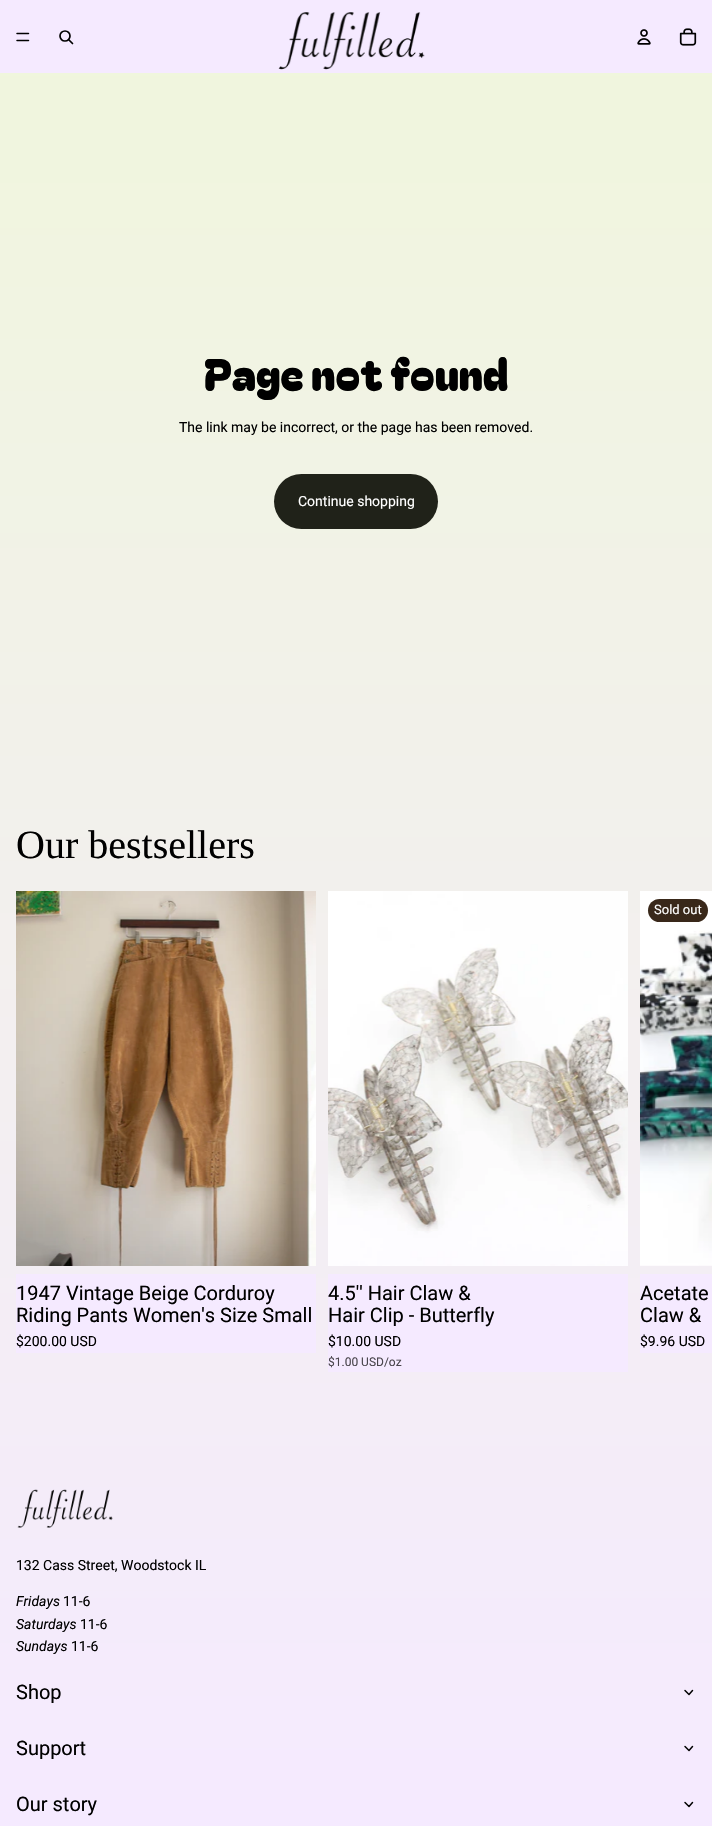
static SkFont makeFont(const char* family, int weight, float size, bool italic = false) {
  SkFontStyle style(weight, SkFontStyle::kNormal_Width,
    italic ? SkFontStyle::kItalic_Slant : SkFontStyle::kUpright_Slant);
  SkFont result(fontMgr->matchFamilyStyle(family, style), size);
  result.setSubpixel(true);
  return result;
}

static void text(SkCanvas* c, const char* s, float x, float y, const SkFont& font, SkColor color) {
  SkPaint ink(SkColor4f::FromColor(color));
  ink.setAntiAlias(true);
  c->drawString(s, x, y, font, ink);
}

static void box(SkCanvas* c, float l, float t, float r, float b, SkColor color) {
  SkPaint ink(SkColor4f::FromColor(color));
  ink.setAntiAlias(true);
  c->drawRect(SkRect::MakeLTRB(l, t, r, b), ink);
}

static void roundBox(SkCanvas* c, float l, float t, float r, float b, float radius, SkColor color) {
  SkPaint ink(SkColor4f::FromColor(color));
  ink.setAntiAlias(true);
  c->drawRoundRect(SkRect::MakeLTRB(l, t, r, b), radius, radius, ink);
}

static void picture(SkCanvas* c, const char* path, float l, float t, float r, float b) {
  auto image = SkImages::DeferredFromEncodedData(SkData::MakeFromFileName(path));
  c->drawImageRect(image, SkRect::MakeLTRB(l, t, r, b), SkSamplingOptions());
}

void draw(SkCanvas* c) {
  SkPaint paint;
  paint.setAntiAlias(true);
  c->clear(0xffffffff);
  {
    const SkColor colors[] = {0xfff0f6dc, 0xfff5eaff};
    const float stops[] = {0, 1};
    const SkPoint ends[] = {{356, 0}, {356, 1826}};
    paint.setShader(SkGradientShader::MakeLinear(ends, colors, stops, 2, SkTileMode::kClamp));
    paint.setAlpha(255);
  }
  c->drawRect(SkRect::MakeLTRB(0, 73, 712, 1826), paint);
  box(c, 0, 0, 712, 73, 0xfff5eaff);
  paint.setStyle(SkPaint::kStroke_Style);
  paint.setStrokeWidth(1.5f);
  paint.setStrokeCap(SkPaint::kRound_Cap);
  paint.setShader(nullptr);
  paint.setColor(0xff000000);
  c->drawPath(SkPathBuilder().moveTo(17, 33.5f).lineTo(28.5f, 33.5f).moveTo(17, 40.5f).lineTo(28.5f, 40.5f).detach(), paint);
  paint.setStrokeWidth(1.7f);
  paint.setStrokeCap(SkPaint::kButt_Cap);
  c->drawCircle(65, 36, 5, paint);
  paint.setStrokeCap(SkPaint::kRound_Cap);
  paint.setStrokeJoin(SkPaint::kRound_Join);
  c->drawPath(SkPathBuilder().moveTo(69, 40).lineTo(72.5f, 43.5f).detach(), paint);
  picture(c, "img_01.png", 278, 12, 425, 70);
  picture(c, "img_02.png", 637, 29, 651, 45);
  picture(c, "img_03.png", 679, 28, 697, 46);
  SkFont face1 = makeFont("Bagel Fat One", 400, 44);
  text(c, "Page not found", 204, 391, face1, 0xff000000);
  SkFont face2 = makeFont("Roboto", 400, 14);
  text(c, "The link may be incorrect, or the page has been removed.", 179, 432, face2, 0xff000000);
  roundBox(c, 274, 474, 438, 529, 27.5f, 0xff202219);
  text(c, "Continue shopping", 298, 506, face2, 0xffffffff);
  SkFont face3 = makeFont("Liberation Serif", 400, 40);
  text(c, "Our bestsellers", 16, 858, face3, 0xff000000);
  picture(c, "img_04.png", 16, 891, 316, 1266);
  box(c, 16, 1274, 316, 1353, 0xfff5eaff);
  SkFont face4 = makeFont("Roboto", 400, 20);
  text(c, "1947 Vintage Beige Corduroy", 16, 1300, face4, 0xff000000);
  text(c, "Riding Pants Women's Size Small", 16, 1322, face4, 0xff000000);
  text(c, "$200.00 USD", 16, 1346, face2, 0xff000000);
  picture(c, "img_05.png", 328, 891, 628, 1266);
  box(c, 328, 1274, 628, 1372, 0xfff5eaff);
  text(c, "4.5'' Hair Claw &", 328, 1300, face4, 0xff000000);
  text(c, "Hair Clip - Butterfly", 328, 1322, face4, 0xff000000);
  text(c, "$10.00 USD", 328, 1346, face2, 0xff000000);
  SkFont face5 = makeFont("Roboto", 400, 12);
  text(c, "$1.00 USD/oz", 328, 1366, face5, 0xff4a464d);
  picture(c, "img_06.png", 640, 891, 712, 1266);
  roundBox(c, 648, 899, 708, 922, 11.5f, 0xff39281a);
  SkFont face6 = makeFont("Roboto", 400, 13);
  text(c, "Sold out", 654, 914, face6, 0xffffffff);
  box(c, 640, 1274, 712, 1353, 0xfff5eaff);
  text(c, "Acetate", 640, 1300, face4, 0xff000000);
  text(c, "Claw &", 640, 1322, face4, 0xff000000);
  text(c, "$9.96 USD", 640, 1346, face2, 0xff000000);
  picture(c, "img_07.png", 17, 1489, 113, 1528);
  text(c, "132 Cass Street, Woodstock IL", 16, 1570, face2, 0xff000000);
  SkFont face7 = makeFont("Roboto", 400, 14, true);
  text(c, "Fridays", 16, 1606, face7, 0xff000000);
  text(c, "11-6", 63, 1606, face2, 0xff000000);
  text(c, "Saturdays", 16, 1629, face7, 0xff000000);
  text(c, "11-6", 80, 1629, face2, 0xff000000);
  text(c, "Sundays", 16, 1651, face7, 0xff000000);
  text(c, "11-6", 71, 1651, face2, 0xff000000);
  text(c, "Shop", 16, 1699, face4, 0xff000000);
  paint.setStrokeWidth(1.5f);
  c->drawPath(SkPathBuilder().moveTo(692.5f, 1690.5f).lineTo(689, 1694.5f).lineTo(685, 1690.5f).moveTo(692.5f, 1746.5f).lineTo(689, 1750.5f).lineTo(685, 1746.5f).detach(), paint);
  text(c, "Support", 16, 1755, face4, 0xff000000);
  text(c, "Our story", 16, 1811, face4, 0xff000000);
  c->drawPath(SkPathBuilder().moveTo(692.5f, 1802.5f).lineTo(689, 1806.5f).lineTo(685, 1802.5f).detach(), paint);
}
